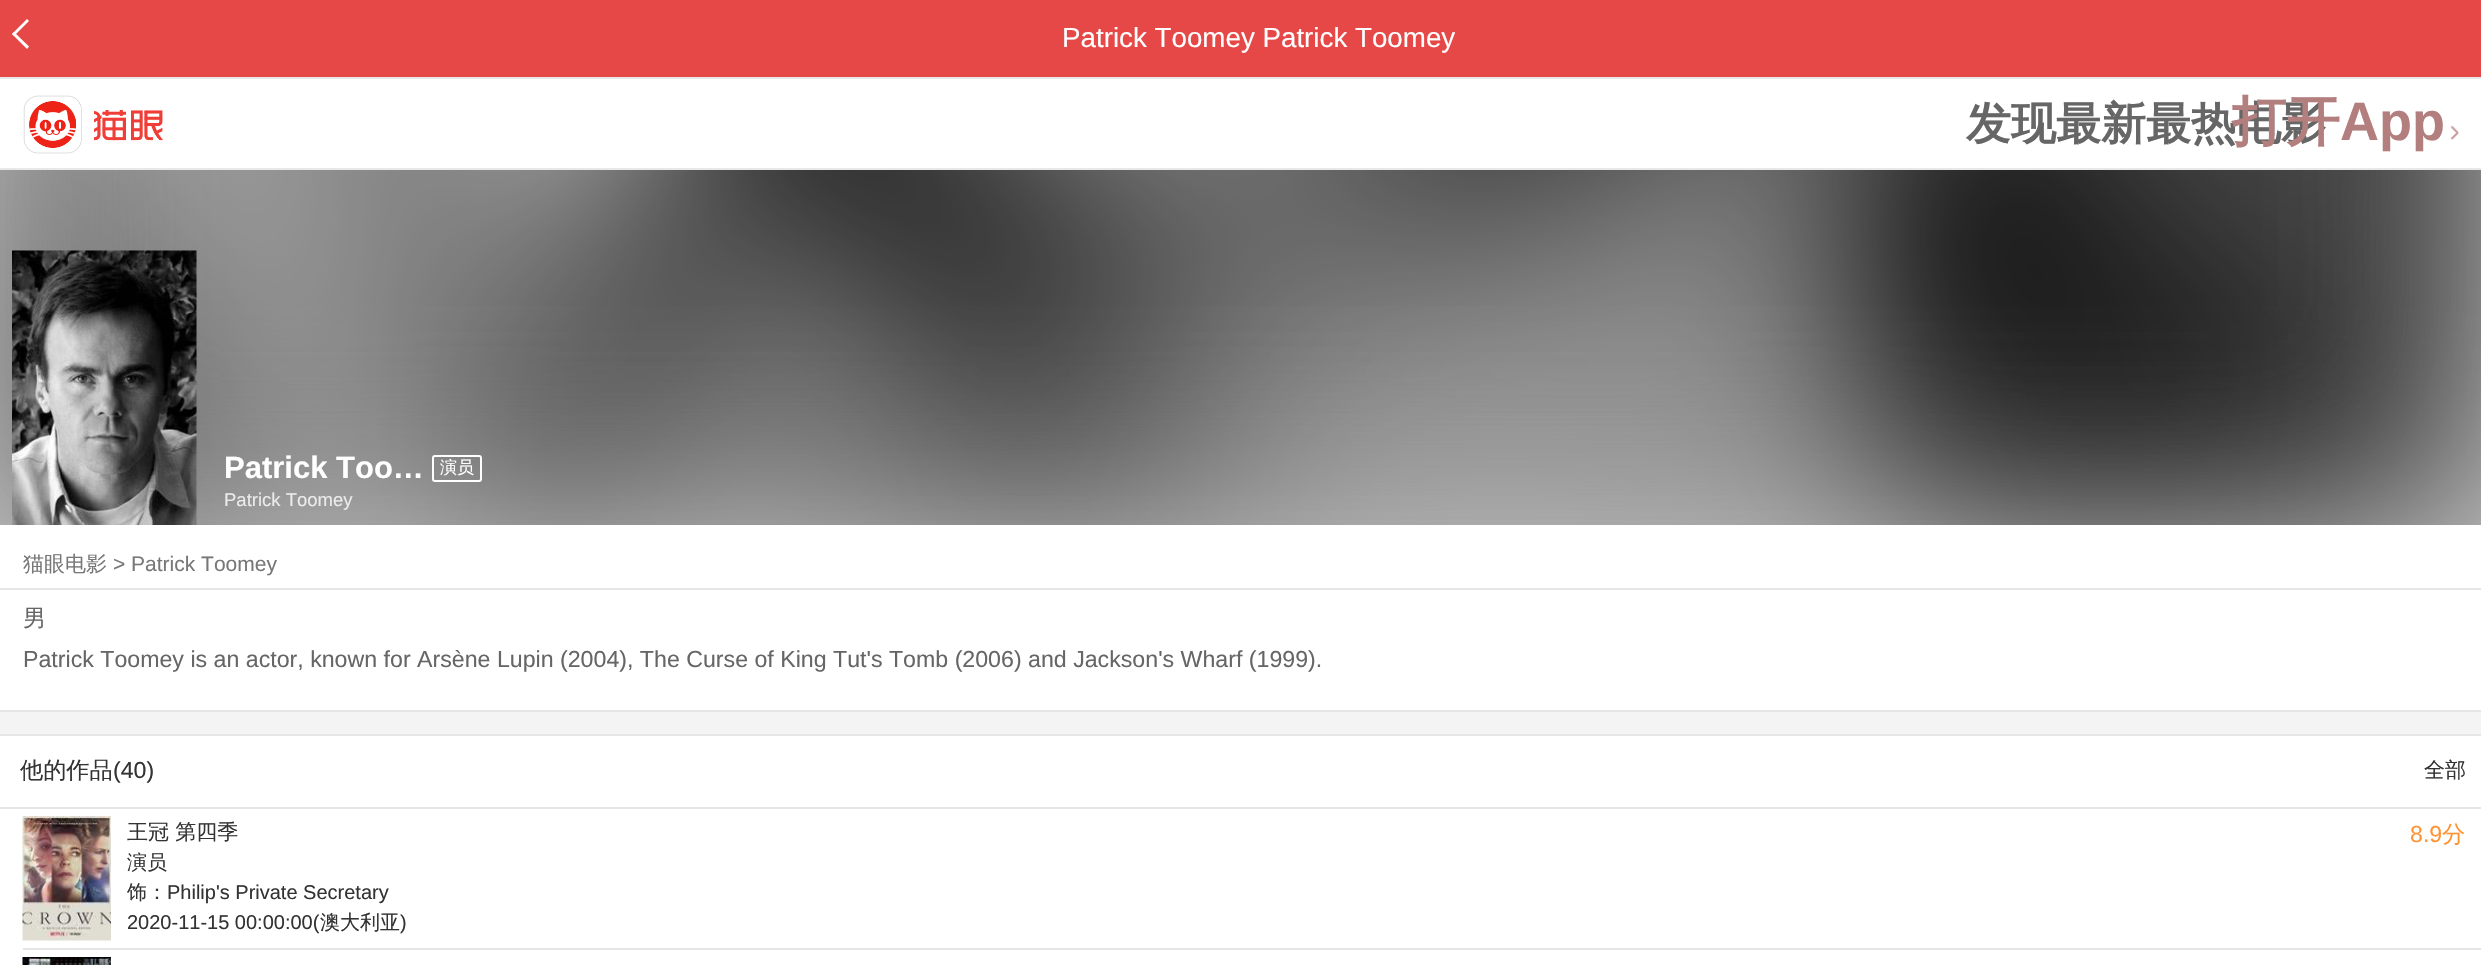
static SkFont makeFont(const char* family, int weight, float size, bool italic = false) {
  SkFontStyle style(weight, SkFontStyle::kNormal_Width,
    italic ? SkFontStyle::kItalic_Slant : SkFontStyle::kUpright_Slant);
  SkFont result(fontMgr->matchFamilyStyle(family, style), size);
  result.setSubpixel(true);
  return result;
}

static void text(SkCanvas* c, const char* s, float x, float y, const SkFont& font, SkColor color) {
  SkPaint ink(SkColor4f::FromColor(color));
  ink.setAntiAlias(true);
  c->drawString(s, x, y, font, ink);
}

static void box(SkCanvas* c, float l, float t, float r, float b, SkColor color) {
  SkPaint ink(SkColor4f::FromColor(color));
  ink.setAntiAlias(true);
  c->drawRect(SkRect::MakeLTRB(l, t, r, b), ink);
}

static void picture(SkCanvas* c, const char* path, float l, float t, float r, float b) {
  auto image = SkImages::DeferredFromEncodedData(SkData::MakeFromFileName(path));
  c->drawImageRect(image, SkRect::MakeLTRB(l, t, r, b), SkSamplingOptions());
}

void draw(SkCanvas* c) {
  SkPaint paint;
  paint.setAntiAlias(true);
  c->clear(0xfff4f4f4);
  box(c, 0, 0, 2481, 77, 0xffe54847);
  box(c, 0, 525, 2481, 710, 0xffffffff);
  box(c, 0, 170, 2481, 525, 0xffcccccc);
  box(c, 0, 710, 2481, 712, 0xffe5e5e5);
  box(c, 0, 736, 2481, 965, 0xffffffff);
  box(c, 0, 734, 2481, 736, 0xffe6e6e6);
  c->save();
  c->clipRect(SkRect::MakeLTRB(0, 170, 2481, 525));
  paint.setColor(0xffadadad);
  paint.setMaskFilter(SkMaskFilter::MakeBlur(kNormal_SkBlurStyle, 92.5f));
  c->drawRect(SkRect::MakeLTRB(0, -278, 2481, 525), paint);
  paint.setMaskFilter(nullptr);
  c->restore();
  paint.setColor(0xffffffff);
  c->drawPath(SkPathBuilder().moveTo(14, 32).lineTo(29, 46.5f).lineTo(27, 49).lineTo(12, 34).close().detach(), paint);
  c->drawPath(SkPathBuilder().moveTo(27, 19).lineTo(29, 21).lineTo(14, 36).lineTo(12, 34).close().detach(), paint);
  SkFont face1 = makeFont("Liberation Sans", 400, 27.75f);
  text(c, "Patrick Toomey Patrick Toomey", 1062, 47, face1, 0xffffffff);
  box(c, 0, 79, 2481, 168, 0xffffffff);
  box(c, 0, 77, 2481, 79, 0xffe8e8e8);
  box(c, 0, 168, 2481, 170, 0xffe8e8e8);
  picture(c, "img_01.png", 23, 95, 163, 154);
  SkFont face2 = makeFont("WenQuanYi Zen Hei", 700, 45);
  text(c, "发现最新最热电影", 1966, 139, face2, 0xff666666);
  SkFont face3 = makeFont("WenQuanYi Zen Hei", 700, 54);
  text(c, "打开", 2232, 140, face3, 0xffb37e7e);
  SkFont face4 = makeFont("Liberation Sans", 700, 54);
  text(c, "App", 2340, 140, face4, 0xffb37e7e);
  picture(c, "img_02.png", 2450, 125, 2459, 140);
  picture(c, "img_03.png", 0, 170, 2481, 525);
  picture(c, "img_04.png", 12, 250, 197, 525);
  SkFont face5 = makeFont("Liberation Sans", 700, 31);
  text(c, "Patrick Too…", 224, 478, face5, 0xffffffff);
  paint.setStyle(SkPaint::kStroke_Style);
  paint.setStrokeWidth(2);
  c->drawRoundRect(SkRect::MakeLTRB(433, 456, 481, 481), 2, 2, paint);
  SkFont face6 = makeFont("WenQuanYi Zen Hei", 500, 17);
  text(c, "演员", 440, 473, face6, 0xffffffff);
  SkFont face7 = makeFont("Liberation Sans", 400, 18.5f);
  text(c, "Patrick Toomey", 224, 506, face7, 0xffebebeb);
  SkFont face8 = makeFont("WenQuanYi Zen Hei", 500, 21);
  text(c, "猫眼电影", 23, 571, face8, 0xff777777);
  SkFont face9 = makeFont("Liberation Sans", 400, 21);
  text(c, "> Patrick Toomey", 113, 571, face9, 0xff777777);
  box(c, 0, 588, 2481, 590, 0xffe6e6e6);
  SkFont face10 = makeFont("WenQuanYi Zen Hei", 500, 23.17f);
  text(c, "男", 23, 626, face10, 0xff666666);
  SkFont face11 = makeFont("Liberation Sans", 400, 23.17f);
  text(c, "Patrick Toomey is an actor, known for Arsène Lupin (2004), The Curse of King Tut's Tomb (2006) and Jackson's Wharf (1999).", 23, 667, face11, 0xff666666);
  box(c, 0, 807, 2481, 809, 0xffe6e6e6);
  text(c, "他的作品", 20, 778, face10, 0xff333333);
  text(c, "(40)", 113, 778, face11, 0xff333333);
  text(c, "全部", 2424, 777, face8, 0xff333333);
  box(c, 23, 948, 2481, 950, 0xffe5e5e5);
  picture(c, "img_05.png", 22, 816, 111, 941);
  text(c, "王冠 第四季", 127, 839, face8, 0xff333333);
  text(c, "8.9", 2410, 842, face11, 0xffff9334);
  text(c, "分", 2442, 842, face10, 0xffff9334);
  SkFont face12 = makeFont("WenQuanYi Zen Hei", 500, 20);
  text(c, "演员", 127, 869, face12, 0xff333333);
  text(c, "饰：", 127, 899, face12, 0xff333333);
  SkFont face13 = makeFont("Liberation Sans", 400, 20);
  text(c, "Philip's Private Secretary", 167, 899, face13, 0xff333333);
  text(c, "2020-11-15 00:00:00(", 127, 929, face13, 0xff333333);
  text(c, "澳大利亚", 320, 929, face12, 0xff333333);
  text(c, ")", 400, 929, face13, 0xff333333);
  picture(c, "img_06.png", 22, 957, 111, 965);
}
